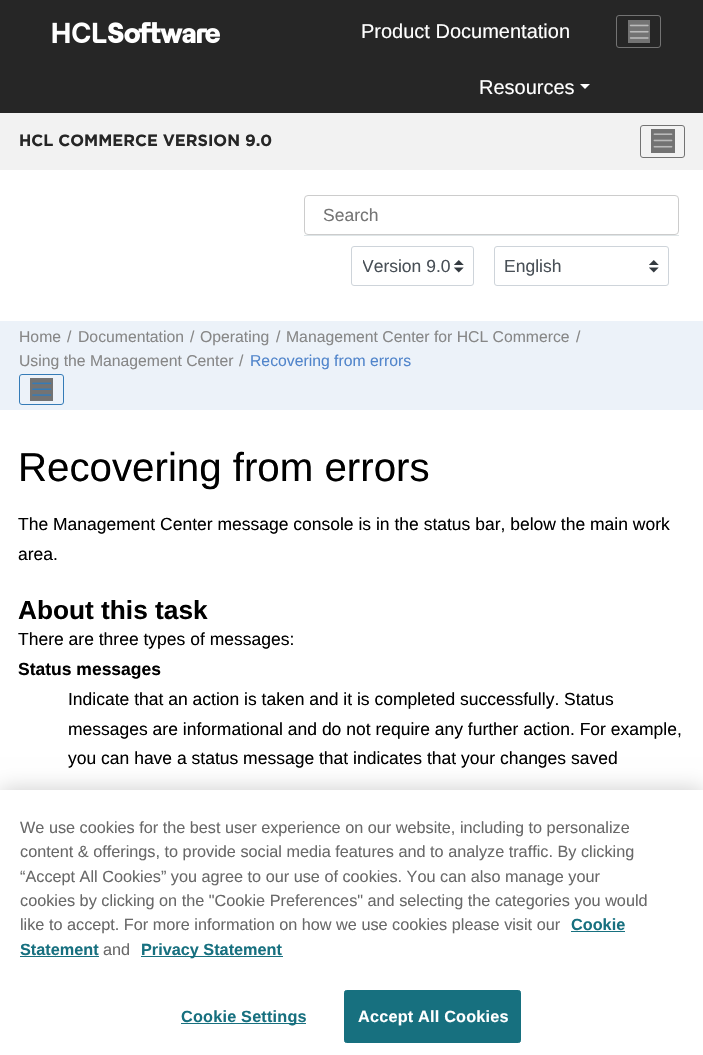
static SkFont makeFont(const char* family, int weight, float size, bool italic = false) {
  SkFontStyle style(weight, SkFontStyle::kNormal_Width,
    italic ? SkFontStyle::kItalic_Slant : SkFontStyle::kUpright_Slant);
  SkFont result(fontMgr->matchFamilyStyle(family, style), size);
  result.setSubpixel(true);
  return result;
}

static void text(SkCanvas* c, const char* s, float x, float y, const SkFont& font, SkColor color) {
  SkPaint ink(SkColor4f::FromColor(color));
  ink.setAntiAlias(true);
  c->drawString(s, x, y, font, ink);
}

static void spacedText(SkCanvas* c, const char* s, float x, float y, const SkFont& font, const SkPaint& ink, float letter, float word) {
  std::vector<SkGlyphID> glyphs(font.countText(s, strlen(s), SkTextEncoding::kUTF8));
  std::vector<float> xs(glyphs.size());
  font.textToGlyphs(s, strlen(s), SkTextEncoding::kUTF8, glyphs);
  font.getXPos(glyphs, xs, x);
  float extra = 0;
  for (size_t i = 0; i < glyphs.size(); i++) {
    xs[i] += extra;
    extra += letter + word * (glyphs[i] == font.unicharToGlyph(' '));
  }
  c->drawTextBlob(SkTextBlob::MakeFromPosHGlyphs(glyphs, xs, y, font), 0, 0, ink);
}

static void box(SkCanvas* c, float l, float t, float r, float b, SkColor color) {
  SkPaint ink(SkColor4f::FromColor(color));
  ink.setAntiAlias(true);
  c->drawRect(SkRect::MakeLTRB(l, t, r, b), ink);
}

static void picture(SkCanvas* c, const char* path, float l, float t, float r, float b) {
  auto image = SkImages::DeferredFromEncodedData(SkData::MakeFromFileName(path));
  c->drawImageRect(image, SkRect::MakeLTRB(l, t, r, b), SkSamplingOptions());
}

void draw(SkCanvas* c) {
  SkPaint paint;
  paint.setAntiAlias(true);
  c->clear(0xffffffff);
  box(c, 0, 0, 703, 113, 0xff262626);
  picture(c, "img_01.png", 52, 22, 220, 44);
  SkFont face1 = makeFont("Liberation Sans", 400, 20);
  text(c, "Product Documentation", 361, 38, face1, 0xffffffff);
  paint.setStyle(SkPaint::kStroke_Style);
  paint.setStrokeWidth(1);
  paint.setColor(0xff737373);
  c->drawRoundRect(SkRect::MakeLTRB(616.5f, 15.5f, 660.5f, 47.5f), 2.5f, 2.5f, paint);
  box(c, 628, 20, 650, 43, 0xff737373);
  picture(c, "img_02.png", 629, 24, 649, 39);
  text(c, "Resources", 479, 94, face1, 0xffffffff);
  paint.setStyle(SkPaint::kFill_Style);
  paint.setColor(0xffffffff);
  c->drawPath(SkPathBuilder().moveTo(580, 84).lineTo(590, 84).lineTo(585, 89).close().detach(), paint);
  box(c, 0, 113, 703, 170, 0xfff2f2f2);
  SkFont face2 = makeFont("Gotham", 700, 16.25f);
  text(c, "HCL COMMERCE VERSION 9.0", 19, 146, face2, 0xff262626);
  paint.setStyle(SkPaint::kStroke_Style);
  paint.setColor(0xff737373);
  c->drawRoundRect(SkRect::MakeLTRB(640.5f, 125.5f, 684.5f, 157.5f), 2.5f, 2.5f, paint);
  box(c, 651, 129, 675, 153, 0xff737373);
  picture(c, "img_03.png", 653, 133, 673, 148);
  box(c, 304, 235, 679, 236, 0xffdee5e7);
  paint.setColor(0xffcccccc);
  c->drawRoundRect(SkRect::MakeLTRB(304.5f, 195.5f, 678.5f, 234.5f), 3.5f, 3.5f, paint);
  SkFont face3 = makeFont("Liberation Sans", 400, 17.5f);
  text(c, "Search", 323, 221, face3, 0xff757575);
  picture(c, "img_04.png", 454, 260, 464, 273);
  paint.setColor(0xffced4da);
  c->drawRoundRect(SkRect::MakeLTRB(351.5f, 246.5f, 473.5f, 285.5f), 2.5f, 2.5f, paint);
  c->save();
  c->clipRect(SkRect::MakeLTRB(363, 253, 451, 279));
  text(c, "Version 9.0", 362, 272, face3, 0xff495057);
  c->restore();
  picture(c, "img_04.png", 649, 260, 659, 273);
  c->drawRoundRect(SkRect::MakeLTRB(494.5f, 246.5f, 668.5f, 285.5f), 2.5f, 2.5f, paint);
  text(c, "English", 504, 272, face3, 0xff495057);
  box(c, 0, 321, 703, 410, 0xffecf2f9);
  SkFont face4 = makeFont("Liberation Sans", 400, 15.75f);
  text(c, "Home", 19, 342, face4, 0xff878787);
  text(c, "/", 67, 342, face4, 0xff878787);
  text(c, "Documentation", 78, 342, face4, 0xff878787);
  text(c, "/", 190, 342, face4, 0xff878787);
  text(c, "Operating", 200, 342, face4, 0xff878787);
  text(c, "/", 276, 342, face4, 0xff878787);
  text(c, "Management Center for HCL Commerce", 286, 342, face4, 0xff878787);
  text(c, "/", 576, 342, face4, 0xff878787);
  text(c, "Using the Management Center", 19, 366, face4, 0xff878787);
  text(c, "/", 239, 366, face4, 0xff878787);
  text(c, "Recovering from errors", 250, 366, face4, 0xff5185cb);
  paint.setColor(0xff347bb7);
  c->drawRoundRect(SkRect::MakeLTRB(19.5f, 374.5f, 63.5f, 404.5f), 2.5f, 2.5f, paint);
  box(c, 30, 378, 53, 401, 0xff737373);
  picture(c, "img_05.png", 32, 382, 52, 396);
  SkFont face5 = makeFont("Liberation Sans", 400, 40.25f);
  text(c, "Recovering from errors", 18, 481, face5, 0xff000000);
  text(c, "The Management Center message console is in the status bar, below the main work", 18, 530, face3, 0xff000000);
  text(c, "area.", 18, 560, face3, 0xff000000);
  SkFont face6 = makeFont("Liberation Sans", 700, 26.25f);
  text(c, "About this task", 18, 619, face6, 0xff000000);
  text(c, "There are three types of messages:", 18, 645, face3, 0xff000000);
  SkFont face7 = makeFont("Liberation Sans", 700, 17.5f);
  text(c, "Status messages", 18, 675, face7, 0xff000000);
  text(c, "Indicate that an action is taken and it is completed successfully. Status", 68, 705, face3, 0xff000000);
  text(c, "messages are informational and do not require any further action. For example,", 68, 735, face3, 0xff000000);
  text(c, "you can have a status message that indicates that your changes saved", 68, 764, face3, 0xff000000);
  paint.setStyle(SkPaint::kFill_Style);
  paint.setColor(0x33000000);
  paint.setMaskFilter(SkMaskFilter::MakeBlur(kNormal_SkBlurStyle, 11));
  c->drawRect(SkRect::MakeLTRB(0, 790, 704, 1055), paint);
  paint.setMaskFilter(nullptr);
  box(c, 0, 790, 703, 1055, 0xffffffff);
  SkFont face8 = makeFont("Liberation Sans", 400, 16.25f);
  text(c, "We use cookies for the best user experience on our website, including to personalize", 20, 833, face8, 0xff696969);
  text(c, "content & offerings, to provide social media features and to analyze traffic. By clicking", 20, 857, face8, 0xff696969);
  text(c, "“Accept All Cookies” you agree to our use of cookies. You can also manage your", 20, 882, face8, 0xff696969);
  text(c, "cookies by clicking on the \"Cookie Preferences\" and selecting the categories you would", 20, 906, face8, 0xff696969);
  text(c, "like to accept. For more information on how we use cookies please visit our", 20, 930, face8, 0xff696969);
  SkFont face9 = makeFont("Liberation Sans", 700, 16.25f);
  text(c, "Cookie", 571, 930, face9, 0xff17707f);
  box(c, 571, 931, 625, 932, 0xff17707f);
  text(c, "Statement", 20, 955, face9, 0xff17707f);
  box(c, 20, 956, 99, 957, 0xff17707f);
  text(c, "and", 103, 955, face8, 0xff696969);
  box(c, 141, 956, 283, 957, 0xff17707f);
  text(c, "Privacy Statement", 141, 955, face9, 0xff17707f);
  box(c, 181, 1023, 306, 1024, 0xff17707f);
  paint.setColor(0xff17707f);
  spacedText(c, "Cookie Settings", 181, 1022, face9, paint, 0.2f, 0);
  c->drawRoundRect(SkRect::MakeLTRB(344.5f, 990.5f, 520.5f, 1042.5f), 2, 2, paint);
  paint.setStyle(SkPaint::kStroke_Style);
  c->drawRoundRect(SkRect::MakeLTRB(344.5f, 990.5f, 520.5f, 1042.5f), 2, 2, paint);
  paint.setStyle(SkPaint::kFill_Style);
  paint.setColor(0xffffffff);
  spacedText(c, "Accept All Cookies", 358, 1022, face9, paint, 0.2f, 0);
}
